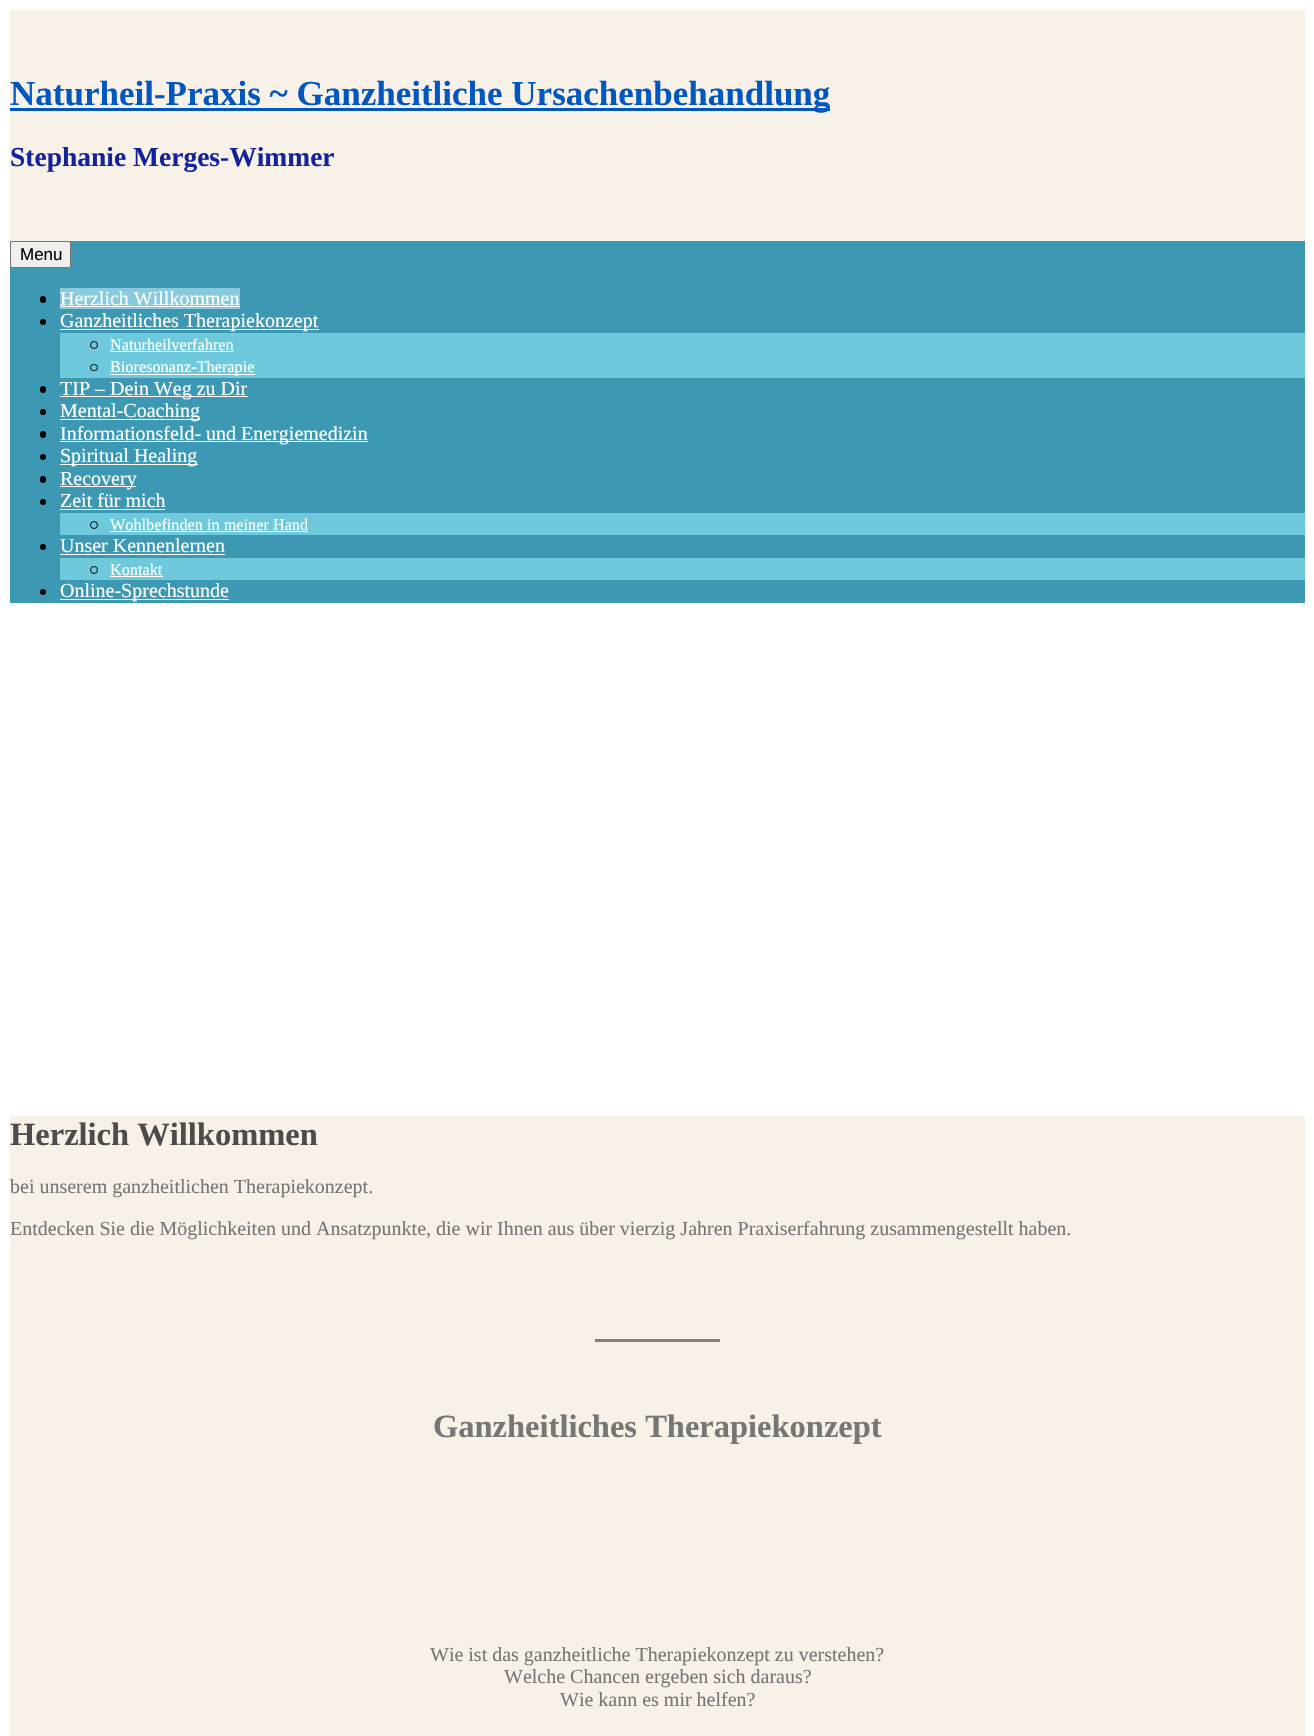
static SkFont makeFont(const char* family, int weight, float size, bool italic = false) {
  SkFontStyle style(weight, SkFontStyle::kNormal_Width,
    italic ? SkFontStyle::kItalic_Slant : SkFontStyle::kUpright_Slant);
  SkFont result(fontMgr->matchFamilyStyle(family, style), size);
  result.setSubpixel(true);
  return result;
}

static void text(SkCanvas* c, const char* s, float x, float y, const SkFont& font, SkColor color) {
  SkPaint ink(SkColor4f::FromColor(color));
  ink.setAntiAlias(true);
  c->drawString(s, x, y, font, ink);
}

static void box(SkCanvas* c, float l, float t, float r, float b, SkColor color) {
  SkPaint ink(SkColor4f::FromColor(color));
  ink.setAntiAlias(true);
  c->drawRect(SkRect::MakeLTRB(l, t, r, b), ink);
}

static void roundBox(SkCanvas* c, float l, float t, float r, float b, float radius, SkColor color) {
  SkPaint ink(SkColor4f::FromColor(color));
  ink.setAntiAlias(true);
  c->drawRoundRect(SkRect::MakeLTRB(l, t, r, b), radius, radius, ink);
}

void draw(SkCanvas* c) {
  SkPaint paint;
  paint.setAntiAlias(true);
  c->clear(0xffffffff);
  box(c, 10, 10, 1305, 241, 0xfff7f1e8);
  box(c, 10, 108, 830, 111, 0xff0057c1);
  SkFont face1 = makeFont("Liberation Serif", 700, 35);
  text(c, "Naturheil-Praxis ~ Ganzheitliche Ursachenbehandlung", 10, 105, face1, 0xff0057c1);
  SkFont face2 = makeFont("Liberation Serif", 700, 27.5f);
  text(c, "Stephanie Merges-Wimmer", 10, 166, face2, 0xff15239b);
  box(c, 10, 241, 1305, 603, 0xff3d98b3);
  paint.setColor(0xffefefef);
  c->drawRoundRect(SkRect::MakeLTRB(10.5f, 241.5f, 70.5f, 267.5f), 2, 2, paint);
  paint.setStyle(SkPaint::kStroke_Style);
  paint.setStrokeWidth(1);
  paint.setColor(0xff767676);
  c->drawRoundRect(SkRect::MakeLTRB(10.5f, 241.5f, 70.5f, 267.5f), 2, 2, paint);
  SkFont face3 = makeFont("Liberation Sans", 400, 17);
  text(c, "Menu", 20, 260, face3, 0xff000000);
  roundBox(c, 40, 296, 46, 303, 3, 0xff000000);
  box(c, 60, 288, 240, 309, 0xff89cadd);
  SkFont face4 = makeFont("Liberation Serif", 400, 20);
  text(c, "Herzlich Willkommen", 60, 305, face4, 0xffffffff);
  box(c, 60, 306, 240, 307, 0xffffffff);
  paint.setStyle(SkPaint::kFill_Style);
  paint.setColor(0xff000000);
  c->drawCircle(43, 322, 3, paint);
  box(c, 60, 329, 319, 330, 0xffffffff);
  text(c, "Ganzheitliches Therapiekonzept", 60, 327, face4, 0xffffffff);
  box(c, 60, 333, 1305, 378, 0xff6dc9db);
  paint.setStyle(SkPaint::kStroke_Style);
  c->drawCircle(94, 345, 3.5f, paint);
  SkFont face5 = makeFont("Liberation Serif", 400, 16.25f);
  text(c, "Naturheilverfahren", 110, 350, face5, 0xffffffff);
  box(c, 110, 351, 234, 352, 0xffffffff);
  c->drawRoundRect(SkRect::MakeLTRB(90.5f, 364.5f, 97.5f, 370.5f), 3, 3, paint);
  box(c, 110, 374, 255, 375, 0xffffffff);
  text(c, "Bioresonanz-Therapie", 110, 372, face5, 0xffffffff);
  roundBox(c, 40, 386, 46, 393, 3, 0xff000000);
  box(c, 60, 396, 248, 397, 0xffffffff);
  text(c, "TIP – Dein Weg zu Dir", 60, 395, face4, 0xffffffff);
  paint.setStyle(SkPaint::kFill_Style);
  c->drawCircle(43, 412, 3, paint);
  box(c, 60, 419, 200, 420, 0xffffffff);
  text(c, "Mental-Coaching", 60, 417, face4, 0xffffffff);
  roundBox(c, 40, 431, 46, 438, 3, 0xff000000);
  box(c, 60, 441, 368, 442, 0xffffffff);
  text(c, "Informationsfeld- und Energiemedizin", 60, 440, face4, 0xffffffff);
  c->drawCircle(43, 457, 3, paint);
  box(c, 60, 464, 198, 465, 0xffffffff);
  text(c, "Spiritual Healing", 60, 462, face4, 0xffffffff);
  roundBox(c, 40, 476, 46, 483, 3, 0xff000000);
  box(c, 60, 486, 136, 487, 0xffffffff);
  text(c, "Recovery", 60, 485, face4, 0xffffffff);
  c->drawCircle(43, 502, 3, paint);
  text(c, "Zeit für mich", 60, 507, face4, 0xffffffff);
  box(c, 60, 509, 165, 510, 0xffffffff);
  box(c, 60, 513, 1305, 535, 0xff6dc9db);
  paint.setStyle(SkPaint::kStroke_Style);
  c->drawCircle(94, 525, 3.5f, paint);
  text(c, "Wohlbefinden in meiner Hand", 110, 530, face5, 0xffffffff);
  box(c, 110, 531, 308, 532, 0xffffffff);
  paint.setStyle(SkPaint::kFill_Style);
  c->drawCircle(43, 547, 3, paint);
  text(c, "Unser Kennenlernen", 60, 552, face4, 0xffffffff);
  box(c, 60, 554, 225, 555, 0xffffffff);
  box(c, 60, 558, 1305, 580, 0xff6dc9db);
  paint.setStyle(SkPaint::kStroke_Style);
  c->drawCircle(94, 570, 3.5f, paint);
  text(c, "Kontakt", 110, 575, face5, 0xffffffff);
  box(c, 110, 576, 163, 577, 0xffffffff);
  paint.setStyle(SkPaint::kFill_Style);
  c->drawCircle(43, 592, 3, paint);
  box(c, 60, 599, 229, 600, 0xffffffff);
  text(c, "Online-Sprechstunde", 60, 597, face4, 0xffffffff);
  box(c, 10, 1116, 1305, 1736, 0xfff7f1e8);
  SkFont face6 = makeFont("Liberation Serif", 700, 32.5f);
  text(c, "Herzlich Willkommen", 10, 1145, face6, 0xff4c4c4c);
  text(c, "bei unserem ganzheitlichen Therapiekonzept.", 10, 1193, face4, 0xff767676);
  text(c, "Entdecken Sie die Möglichkeiten und Ansatzpunkte, die wir Ihnen aus über vierzig Jahren Praxiserfahrung zusammengestellt haben.", 10, 1235, face4, 0xff767676);
  box(c, 595, 1339, 720, 1342, 0xff808080);
  text(c, "Ganzheitliches Therapiekonzept", 433, 1437, face6, 0xff767676);
  text(c, "Wie ist das ganzheitliche Therapiekonzept zu verstehen?", 430, 1661, face4, 0xff767676);
  text(c, "Welche Chancen ergeben sich daraus?", 504, 1683, face4, 0xff767676);
  text(c, "Wie kann es mir helfen?", 560, 1706, face4, 0xff767676);
}
